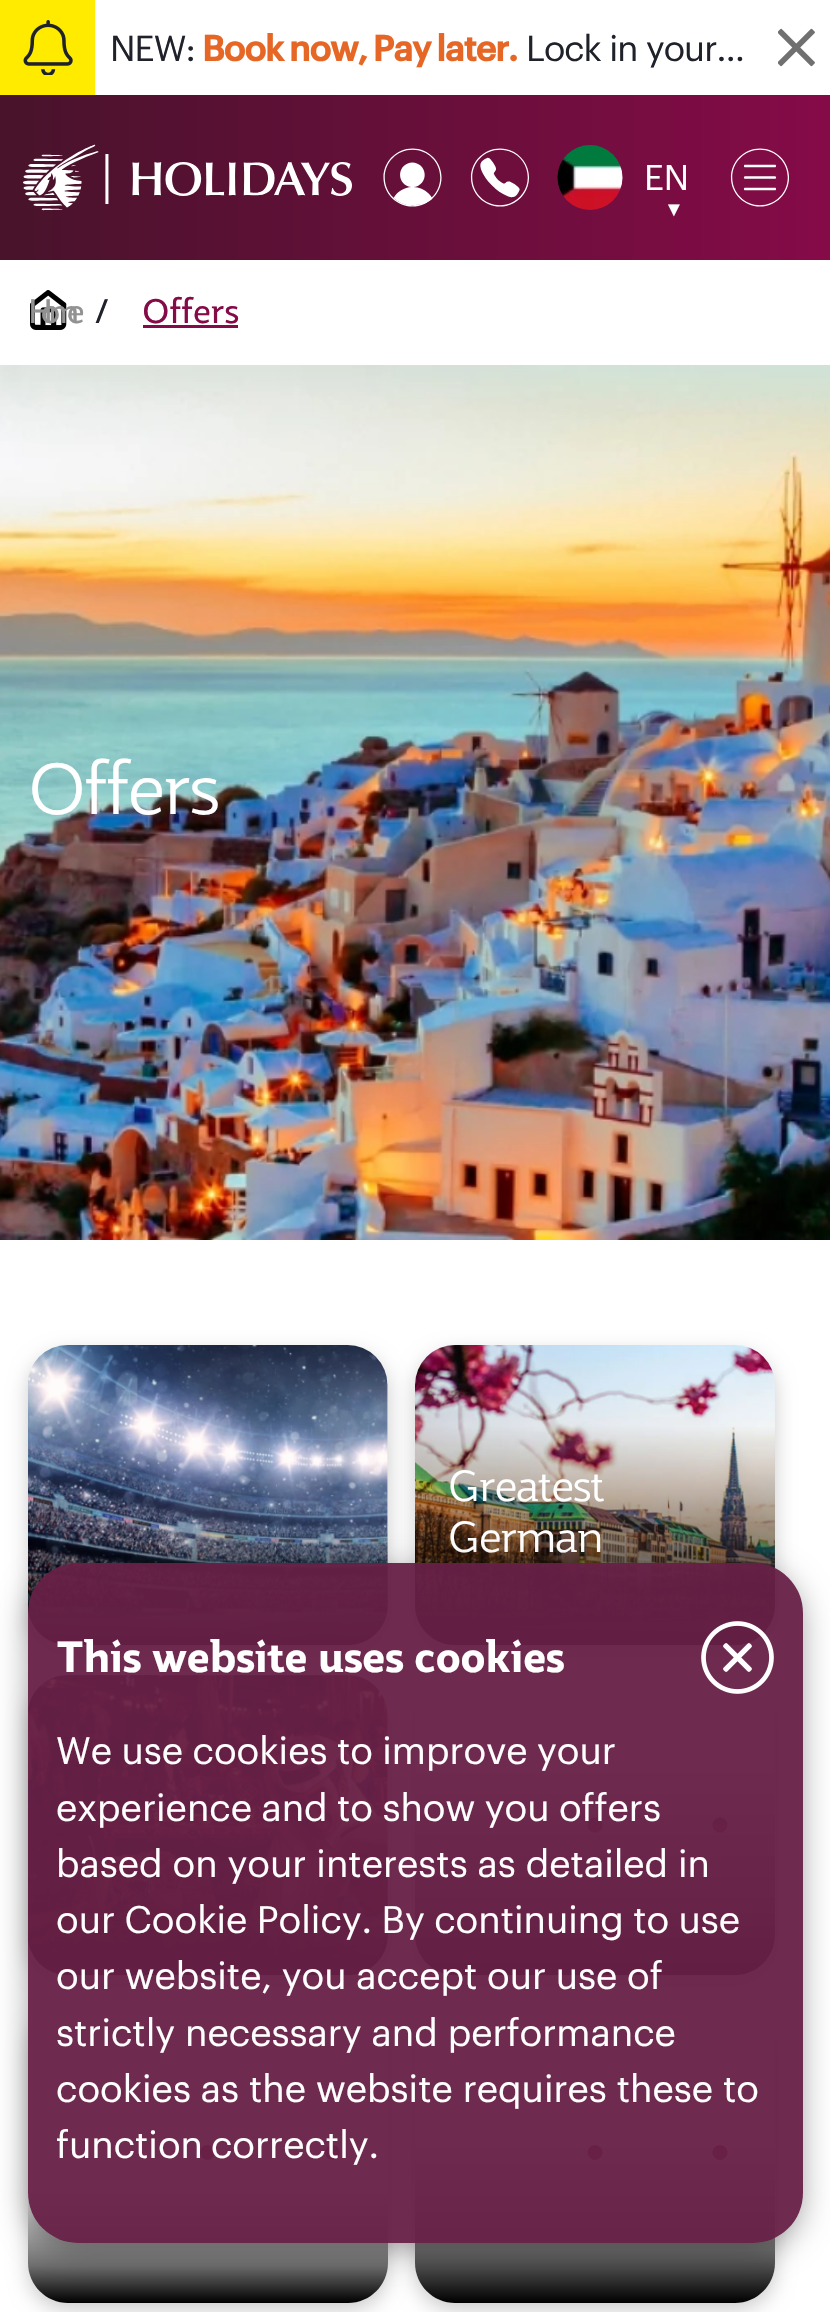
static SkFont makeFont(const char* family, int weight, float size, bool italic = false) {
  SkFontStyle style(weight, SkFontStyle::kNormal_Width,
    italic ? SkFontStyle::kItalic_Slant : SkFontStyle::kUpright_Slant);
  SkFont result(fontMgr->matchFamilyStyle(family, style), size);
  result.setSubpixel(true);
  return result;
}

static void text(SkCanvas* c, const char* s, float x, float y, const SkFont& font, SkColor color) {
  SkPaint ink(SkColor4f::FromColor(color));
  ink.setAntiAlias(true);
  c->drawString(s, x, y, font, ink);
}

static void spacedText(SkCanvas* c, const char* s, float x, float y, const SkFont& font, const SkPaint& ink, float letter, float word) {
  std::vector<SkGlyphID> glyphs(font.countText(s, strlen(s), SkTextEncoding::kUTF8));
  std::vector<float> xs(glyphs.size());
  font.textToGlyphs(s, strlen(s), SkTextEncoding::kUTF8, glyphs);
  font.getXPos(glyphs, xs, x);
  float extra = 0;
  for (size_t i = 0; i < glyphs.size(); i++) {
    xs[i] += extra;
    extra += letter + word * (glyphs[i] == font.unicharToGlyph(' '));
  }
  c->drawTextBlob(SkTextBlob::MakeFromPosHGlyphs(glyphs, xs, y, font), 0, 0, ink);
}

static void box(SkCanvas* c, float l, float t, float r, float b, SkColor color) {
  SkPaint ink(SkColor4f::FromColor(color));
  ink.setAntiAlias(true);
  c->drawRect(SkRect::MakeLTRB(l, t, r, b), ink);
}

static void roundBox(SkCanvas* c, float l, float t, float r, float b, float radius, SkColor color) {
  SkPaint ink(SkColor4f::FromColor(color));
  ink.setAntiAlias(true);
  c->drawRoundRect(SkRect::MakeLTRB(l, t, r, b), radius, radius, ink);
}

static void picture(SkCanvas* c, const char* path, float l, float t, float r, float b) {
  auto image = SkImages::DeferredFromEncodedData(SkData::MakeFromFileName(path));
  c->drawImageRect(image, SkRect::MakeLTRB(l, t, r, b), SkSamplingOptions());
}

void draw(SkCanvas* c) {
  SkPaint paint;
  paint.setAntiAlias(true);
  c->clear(0xffffffff);
  box(c, 0, 0, 95, 95, 0xffffeb00);
  picture(c, "img_01.png", 23, 20, 73, 75);
  SkFont face1 = makeFont("Graphik", 400, 35.25f);
  paint.setColor(0xff1f212b);
  spacedText(c, "NEW:", 110, 61, face1, paint, -0.9f, 0);
  SkFont face2 = makeFont("Graphik", 700, 35.25f);
  paint.setColor(0xffe66625);
  spacedText(c, "Book now, Pay later", 202, 61, face2, paint, -0.9f, -2);
  spacedText(c, ".", 508, 61, face2, paint, -0.9f, 0);
  paint.setColor(0xff1f212b);
  spacedText(c, "Lock in your…", 526, 61, face1, paint, -0.9f, 0);
  picture(c, "img_02.png", 778, 28, 815, 67);
  {
    const SkColor colors[] = {0xff48132b, 0xff850b48};
    const float stops[] = {0, 1};
    const SkPoint ends[] = {{0, 178}, {830, 177}};
    paint.setShader(SkGradientShader::MakeLinear(ends, colors, stops, 2, SkTileMode::kClamp));
    paint.setAlpha(255);
  }
  c->drawRect(SkRect::MakeLTRB(0, 95, 830, 260), paint);
  picture(c, "img_03.png", 23, 144, 352, 211);
  picture(c, "img_04.png", 383, 148, 442, 207);
  picture(c, "img_05.png", 470, 148, 529, 207);
  picture(c, "img_06.png", 557, 145, 623, 210);
  SkFont face3 = makeFont("Graphik", 400, 35);
  text(c, "EN", 644, 190, face3, 0xffffffff);
  SkFont face4 = makeFont("Liberation Sans", 400, 20);
  text(c, "▼", 664, 216, face4, 0xffffffff);
  picture(c, "img_07.png", 730, 148, 789, 207);
  picture(c, "img_08.png", 30, 290, 67, 330);
  SkFont face5 = makeFont("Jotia", 400, 33);
  text(c, "Offers", 142, 323, face5, 0xff850b48);
  box(c, 143, 325, 238, 328, 0xff850b48);
  paint.setShader(nullptr);
  paint.setColor(0xff929292);
  spacedText(c, "Home", 28, 323, face5, paint, -12.5f, 0);
  text(c, "/", 95, 323, face5, 0xff1f212b);
  picture(c, "img_09.png", 0, 365, 830, 1240);
  SkFont face6 = makeFont("Jotia", 300, 70);
  paint.setColor(0xffffffff);
  spacedText(c, "Offers", 28, 814, face6, paint, -1.75f, 0);
  paint.setColor(0x33000000);
  paint.setMaskFilter(SkMaskFilter::MakeBlur(kNormal_SkBlurStyle, 10));
  c->drawRoundRect(SkRect::MakeLTRB(28, 1353, 388, 1653), 40, 40, paint);
  paint.setMaskFilter(nullptr);
  picture(c, "img_10.png", 28, 1345, 388, 1645);
  {
    const SkColor colors[] = {0x00000000, 0x91000000, 0xff000000};
    const float stops[] = {0, 0.69f, 1};
    const SkPoint ends[] = {{208, 1528}, {208, 1645}};
    paint.setShader(SkGradientShader::MakeLinear(ends, colors, stops, 3, SkTileMode::kClamp));
    paint.setAlpha(255);
  }
  c->drawPath(SkPathBuilder().moveTo(28, 1528).lineTo(388, 1528).lineTo(388, 1605).cubicTo(388, 1627, 370, 1645, 348, 1645).lineTo(68, 1645).cubicTo(46, 1645, 28, 1627, 28, 1605).close().detach(), paint);
  paint.setShader(nullptr);
  paint.setColor(0x33000000);
  paint.setMaskFilter(SkMaskFilter::MakeBlur(kNormal_SkBlurStyle, 10));
  c->drawRoundRect(SkRect::MakeLTRB(415, 1353, 775, 1653), 40, 40, paint);
  paint.setMaskFilter(nullptr);
  picture(c, "img_11.png", 415, 1345, 775, 1645);
  {
    const SkColor colors[] = {0x00000000, 0x91000000, 0xff000000};
    const float stops[] = {0, 0.69f, 1};
    const SkPoint ends[] = {{595, 1425}, {595, 1645}};
    paint.setShader(SkGradientShader::MakeLinear(ends, colors, stops, 3, SkTileMode::kClamp));
    paint.setAlpha(255);
  }
  c->drawPath(SkPathBuilder().moveTo(415, 1425).lineTo(775, 1425).lineTo(775, 1605).cubicTo(775, 1627, 757, 1645, 735, 1645).lineTo(455, 1645).cubicTo(433, 1645, 415, 1627, 415, 1605).close().detach(), paint);
  SkFont face7 = makeFont("Jotia", 300, 42.25f);
  paint.setShader(nullptr);
  paint.setColor(0xffffffff);
  spacedText(c, "Greatest", 448, 1501, face7, paint, -1.05f, 0);
  spacedText(c, "German", 448, 1552, face7, paint, -1.05f, 0);
  paint.setColor(0x33000000);
  paint.setMaskFilter(SkMaskFilter::MakeBlur(kNormal_SkBlurStyle, 10));
  c->drawRoundRect(SkRect::MakeLTRB(28, 1683, 388, 1983), 40, 40, paint);
  paint.setMaskFilter(nullptr);
  picture(c, "img_12.png", 28, 1675, 388, 1975);
  {
    const SkColor colors[] = {0x00000000, 0x91000000, 0xff000000};
    const float stops[] = {0, 0.69f, 1};
    const SkPoint ends[] = {{208, 1805}, {208, 1975}};
    paint.setShader(SkGradientShader::MakeLinear(ends, colors, stops, 3, SkTileMode::kClamp));
    paint.setAlpha(255);
  }
  c->drawPath(SkPathBuilder().moveTo(28, 1805).lineTo(388, 1805).lineTo(388, 1935).cubicTo(388, 1957, 370, 1975, 348, 1975).lineTo(68, 1975).cubicTo(46, 1975, 28, 1957, 28, 1935).close().detach(), paint);
  c->save();
  c->clipPath(SkPathBuilder(SkPathFillType::kEvenOdd).moveTo(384, 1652).lineTo(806, 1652).lineTo(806, 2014).lineTo(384, 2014).close().moveTo(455, 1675).lineTo(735, 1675).cubicTo(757, 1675, 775, 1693, 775, 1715).lineTo(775, 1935).cubicTo(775, 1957, 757, 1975, 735, 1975).lineTo(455, 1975).cubicTo(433, 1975, 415, 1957, 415, 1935).lineTo(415, 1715).cubicTo(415, 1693, 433, 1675, 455, 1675).close().detach(), true);
  paint.setShader(nullptr);
  paint.setColor(0x33000000);
  paint.setMaskFilter(SkMaskFilter::MakeBlur(kNormal_SkBlurStyle, 10));
  c->drawRoundRect(SkRect::MakeLTRB(415, 1683, 775, 1983), 40, 40, paint);
  paint.setMaskFilter(nullptr);
  c->restore();
  paint.setColor(0xff8e2157);
  c->drawCircle(595, 1825, 7.5f, paint);
  c->drawCircle(720, 1825, 7.5f, paint);
  {
    const SkColor colors[] = {0x00000000, 0x91000000, 0xff000000};
    const float stops[] = {0, 0.69f, 1};
    const SkPoint ends[] = {{595, 1753}, {595, 1975}};
    paint.setShader(SkGradientShader::MakeLinear(ends, colors, stops, 3, SkTileMode::kClamp));
    paint.setAlpha(255);
  }
  c->drawPath(SkPathBuilder().moveTo(415, 1753).lineTo(775, 1753).lineTo(775, 1935).cubicTo(775, 1957, 757, 1975, 735, 1975).lineTo(455, 1975).cubicTo(433, 1975, 415, 1957, 415, 1935).close().detach(), paint);
  c->save();
  c->clipPath(SkPathBuilder(SkPathFillType::kEvenOdd).moveTo(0, 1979).lineTo(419, 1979).lineTo(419, 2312).lineTo(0, 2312).close().moveTo(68, 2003).lineTo(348, 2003).cubicTo(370, 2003, 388, 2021, 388, 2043).lineTo(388, 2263).cubicTo(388, 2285, 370, 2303, 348, 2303).lineTo(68, 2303).cubicTo(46, 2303, 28, 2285, 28, 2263).lineTo(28, 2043).cubicTo(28, 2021, 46, 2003, 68, 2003).close().detach(), true);
  paint.setShader(nullptr);
  paint.setColor(0x33000000);
  paint.setMaskFilter(SkMaskFilter::MakeBlur(kNormal_SkBlurStyle, 10));
  c->drawRoundRect(SkRect::MakeLTRB(28, 2010, 388, 2310), 40, 40, paint);
  paint.setMaskFilter(nullptr);
  c->restore();
  paint.setColor(0xff8e2157);
  c->drawCircle(207.5f, 2152.5f, 7.5f, paint);
  c->drawCircle(332.5f, 2152.5f, 7.5f, paint);
  {
    const SkColor colors[] = {0x00000000, 0x91000000, 0xff000000};
    const float stops[] = {0, 0.69f, 1};
    const SkPoint ends[] = {{208, 2183}, {208, 2303}};
    paint.setShader(SkGradientShader::MakeLinear(ends, colors, stops, 3, SkTileMode::kClamp));
    paint.setAlpha(255);
  }
  c->drawPath(SkPathBuilder().moveTo(28, 2183).lineTo(388, 2183).lineTo(388, 2263).cubicTo(388, 2285, 370, 2303, 348, 2303).lineTo(68, 2303).cubicTo(46, 2303, 28, 2285, 28, 2263).close().detach(), paint);
  c->save();
  c->clipPath(SkPathBuilder(SkPathFillType::kEvenOdd).moveTo(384, 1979).lineTo(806, 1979).lineTo(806, 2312).lineTo(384, 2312).close().moveTo(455, 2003).lineTo(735, 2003).cubicTo(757, 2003, 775, 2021, 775, 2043).lineTo(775, 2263).cubicTo(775, 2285, 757, 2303, 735, 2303).lineTo(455, 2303).cubicTo(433, 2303, 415, 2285, 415, 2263).lineTo(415, 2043).cubicTo(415, 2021, 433, 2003, 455, 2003).close().detach(), true);
  paint.setShader(nullptr);
  paint.setColor(0x33000000);
  paint.setMaskFilter(SkMaskFilter::MakeBlur(kNormal_SkBlurStyle, 10));
  c->drawRoundRect(SkRect::MakeLTRB(415, 2010, 775, 2310), 40, 40, paint);
  paint.setMaskFilter(nullptr);
  c->restore();
  paint.setColor(0xff8e2157);
  c->drawCircle(595, 2152.5f, 7.5f, paint);
  c->drawCircle(720, 2152.5f, 7.5f, paint);
  {
    const SkColor colors[] = {0x00000000, 0x91000000, 0xff000000};
    const float stops[] = {0, 0.69f, 1};
    const SkPoint ends[] = {{595, 2133}, {595, 2303}};
    paint.setShader(SkGradientShader::MakeLinear(ends, colors, stops, 3, SkTileMode::kClamp));
    paint.setAlpha(255);
  }
  c->drawPath(SkPathBuilder().moveTo(415, 2133).lineTo(775, 2133).lineTo(775, 2263).cubicTo(775, 2285, 757, 2303, 735, 2303).lineTo(455, 2303).cubicTo(433, 2303, 415, 2285, 415, 2263).close().detach(), paint);
  c->save();
  c->clipPath(SkPathBuilder(SkPathFillType::kEvenOdd).moveTo(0, 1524).lineTo(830, 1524).lineTo(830, 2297).lineTo(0, 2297).close().moveTo(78, 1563).lineTo(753, 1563).cubicTo(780.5f, 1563, 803, 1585.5f, 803, 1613).lineTo(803, 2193).cubicTo(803, 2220.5f, 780.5f, 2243, 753, 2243).lineTo(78, 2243).cubicTo(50.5f, 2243, 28, 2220.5f, 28, 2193).lineTo(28, 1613).cubicTo(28, 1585.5f, 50.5f, 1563, 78, 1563).close().detach(), true);
  paint.setShader(nullptr);
  paint.setColor(0x66000000);
  paint.setMaskFilter(SkMaskFilter::MakeBlur(kNormal_SkBlurStyle, 16));
  c->drawRoundRect(SkRect::MakeLTRB(30, 1573, 800, 2248), 48, 48, paint);
  paint.setMaskFilter(nullptr);
  c->restore();
  roundBox(c, 28, 1563, 803, 2243, 50, 0xf2662046);
  SkFont face8 = makeFont("Jotia", 700, 42.25f);
  paint.setColor(0xffffffff);
  spacedText(c, "This website uses cookies", 56, 1672, face8, paint, -1.05f, -1);
  picture(c, "img_13.png", 701, 1621, 774, 1694);
  SkFont face9 = makeFont("Graphik", 400, 37.5f);
  spacedText(c, "We use cookies to improve your", 56, 1764, face9, paint, 0, -0.5f);
  spacedText(c, "experience and to show you offers", 56, 1821, face9, paint, 0, -0.5f);
  text(c, "based on your interests as detailed in", 56, 1877, face9, 0xffffffff);
  spacedText(c, "our Cookie Policy. By continuing to use", 56, 1933, face9, paint, 0, -0.5f);
  spacedText(c, "our website, you accept our use of", 56, 1989, face9, paint, 0, -0.25f);
  text(c, "strictly necessary and performance", 56, 2046, face9, 0xffffffff);
  text(c, "cookies as the website requires these to", 56, 2102, face9, 0xffffffff);
  spacedText(c, "function correctly.", 56, 2158, face9, paint, 0, -2);
}
